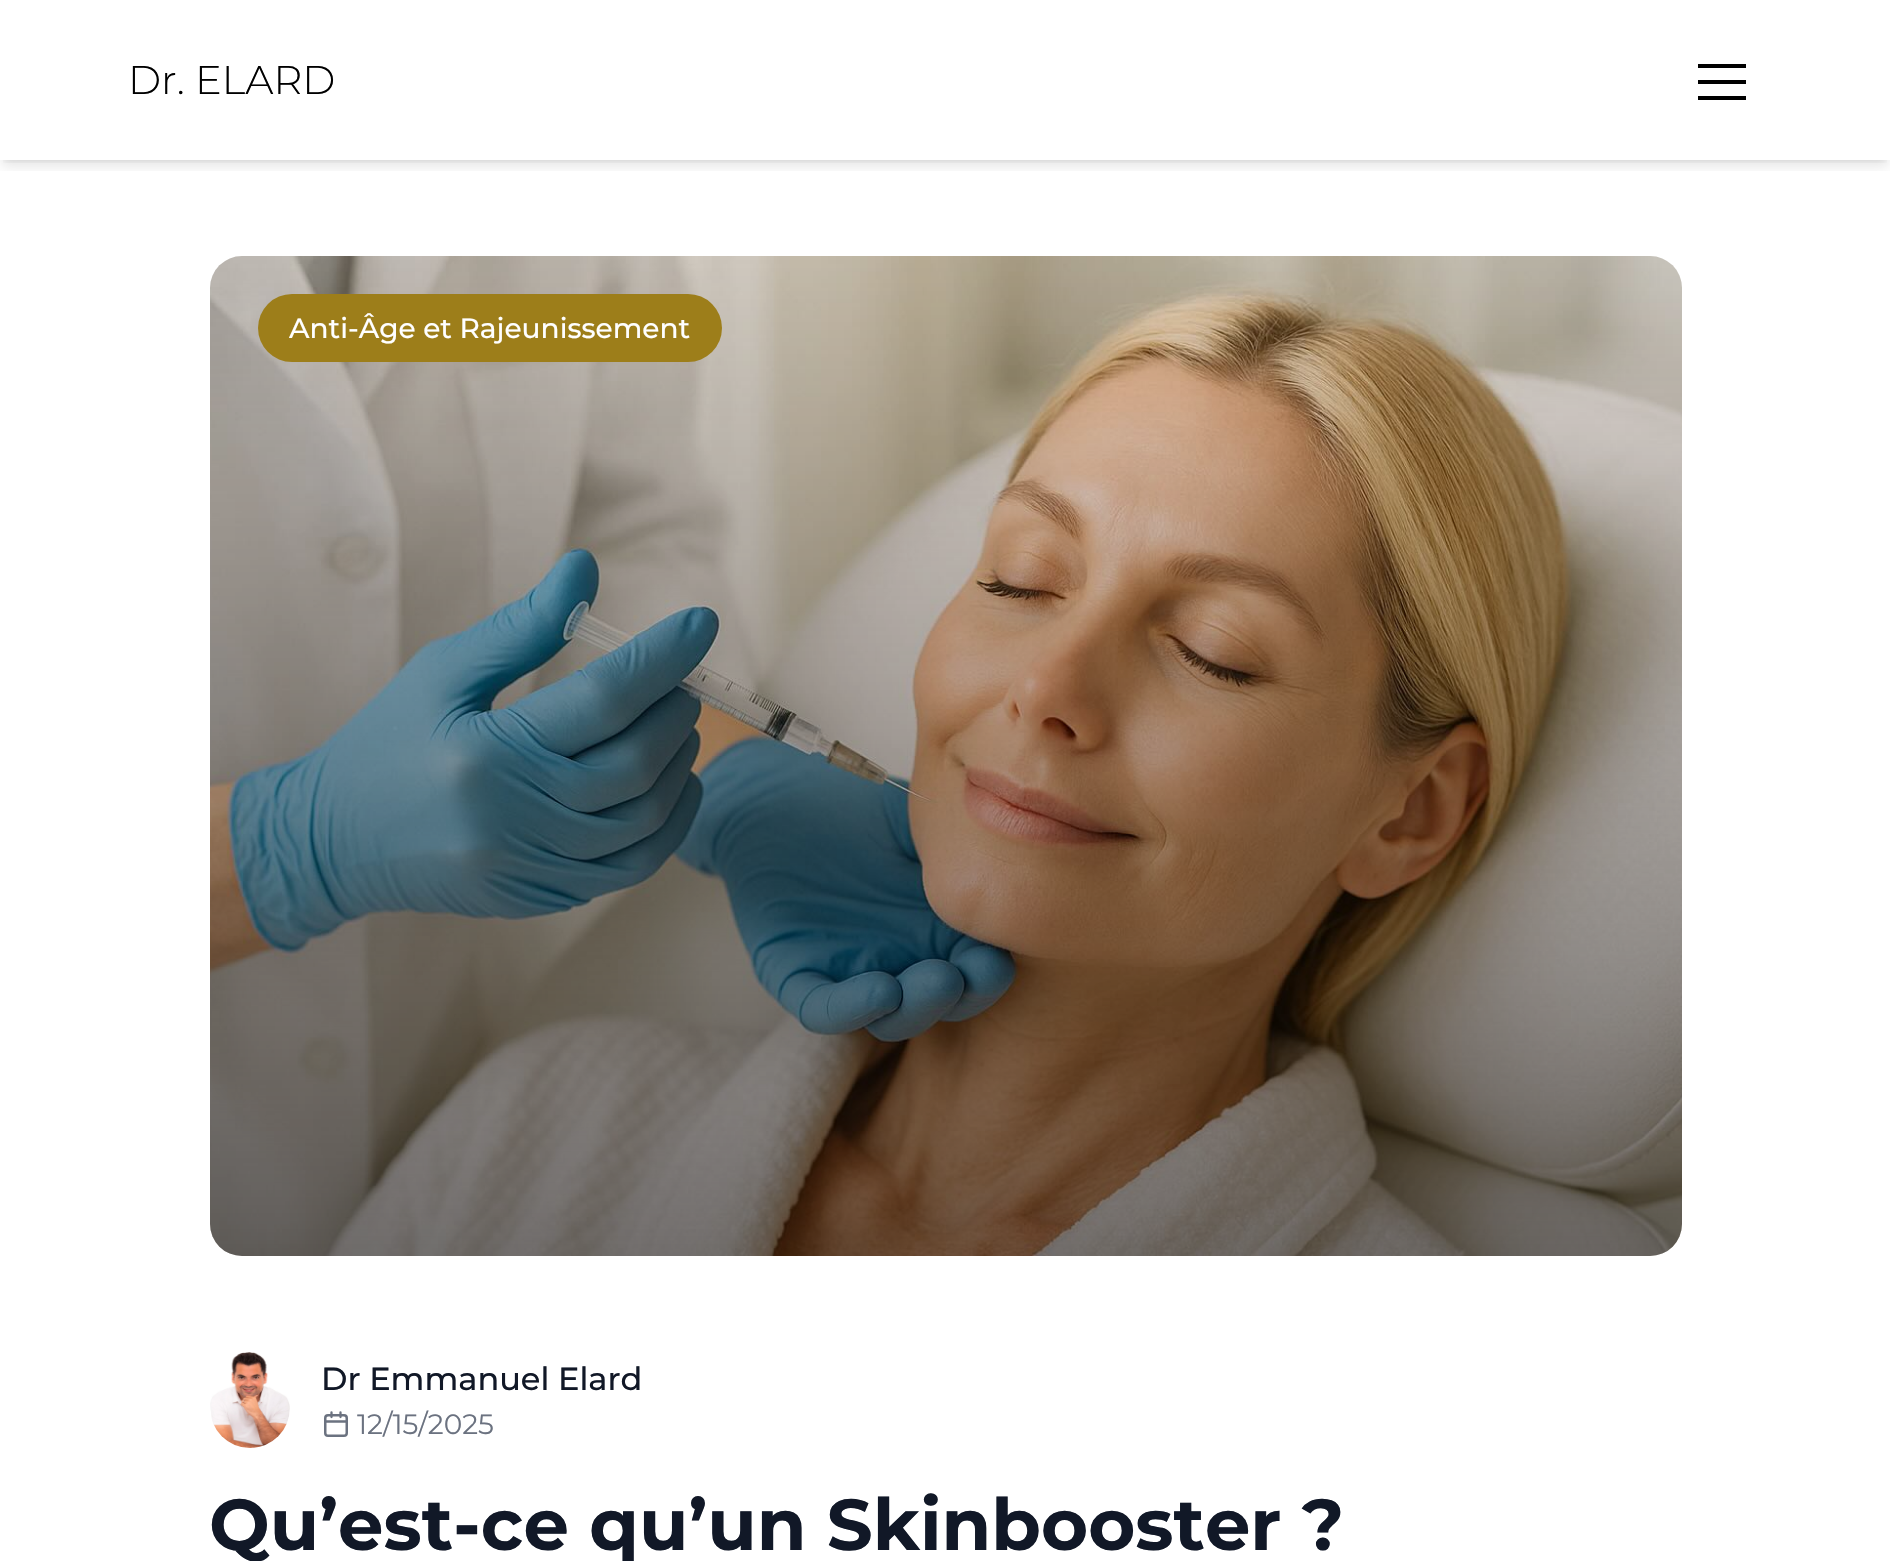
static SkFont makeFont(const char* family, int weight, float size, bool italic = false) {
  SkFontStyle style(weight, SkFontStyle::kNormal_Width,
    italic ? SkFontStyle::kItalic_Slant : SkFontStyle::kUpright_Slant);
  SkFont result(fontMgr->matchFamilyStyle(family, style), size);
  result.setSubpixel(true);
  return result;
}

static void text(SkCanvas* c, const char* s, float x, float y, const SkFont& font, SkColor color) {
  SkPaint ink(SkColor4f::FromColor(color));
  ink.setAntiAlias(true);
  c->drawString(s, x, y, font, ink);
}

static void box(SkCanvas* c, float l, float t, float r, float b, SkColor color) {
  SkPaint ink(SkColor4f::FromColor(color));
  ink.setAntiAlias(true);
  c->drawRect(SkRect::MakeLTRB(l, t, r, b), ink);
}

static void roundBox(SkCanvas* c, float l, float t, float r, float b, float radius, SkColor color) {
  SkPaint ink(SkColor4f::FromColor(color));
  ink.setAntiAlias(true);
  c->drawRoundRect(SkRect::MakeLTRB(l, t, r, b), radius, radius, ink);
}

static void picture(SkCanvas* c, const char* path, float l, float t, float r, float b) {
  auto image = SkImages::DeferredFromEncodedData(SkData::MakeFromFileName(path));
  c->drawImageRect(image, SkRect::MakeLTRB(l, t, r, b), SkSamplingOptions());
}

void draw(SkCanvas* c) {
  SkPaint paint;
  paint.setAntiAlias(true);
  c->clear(0xffffffff);
  c->save();
  c->clipRect(SkRect::MakeLTRB(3, 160, 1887, 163));
  paint.setColor(0x1a000000);
  paint.setMaskFilter(SkMaskFilter::MakeBlur(kNormal_SkBlurStyle, 4));
  c->drawRect(SkRect::MakeLTRB(4, 8, 1886, 160), paint);
  paint.setMaskFilter(nullptr);
  c->restore();
  c->save();
  c->clipRect(SkRect::MakeLTRB(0, 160, 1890, 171));
  paint.setMaskFilter(SkMaskFilter::MakeBlur(kNormal_SkBlurStyle, 6));
  c->drawRect(SkRect::MakeLTRB(2, 10, 1888, 166), paint);
  paint.setMaskFilter(nullptr);
  c->restore();
  SkFont face1 = makeFont("Montserrat", 300, 40);
  text(c, "Dr. ELARD", 128, 94, face1, 0xff000000);
  box(c, 1698, 64, 1746, 68, 0xff000000);
  box(c, 1698, 80, 1746, 84, 0xff000000);
  box(c, 1698, 96, 1746, 100, 0xff000000);
  picture(c, "img_01.png", 210, 256, 1682, 1256);
  {
    const SkColor colors[] = {0x80000000, 0x00000000};
    const float stops[] = {0, 1};
    const SkPoint ends[] = {{946, 1256}, {946, 256}};
    paint.setShader(SkGradientShader::MakeLinear(ends, colors, stops, 2, SkTileMode::kClamp));
    paint.setAlpha(255);
  }
  c->drawRoundRect(SkRect::MakeLTRB(210, 256, 1682, 1256), 32, 32, paint);
  roundBox(c, 258, 294, 722, 362, 34, 0xff9d7e1a);
  SkFont face2 = makeFont("Montserrat", 500, 28);
  text(c, "Anti-Âge et Rajeunissement", 289, 338, face2, 0xffffffff);
  picture(c, "img_02.png", 210, 1352, 290, 1448);
  SkFont face3 = makeFont("Montserrat", 500, 32);
  text(c, "Dr Emmanuel Elard", 321, 1390, face3, 0xff111827);
  paint.setStyle(SkPaint::kStroke_Style);
  paint.setStrokeWidth(2.3f);
  paint.setStrokeCap(SkPaint::kRound_Cap);
  paint.setStrokeJoin(SkPaint::kRound_Join);
  paint.setShader(nullptr);
  paint.setColor(0xff6b7280);
  c->drawPath(SkPathBuilder().moveTo(331.5f, 1412.5f).lineTo(331.5f, 1417).moveTo(340.5f, 1412.5f).lineTo(340.5f, 1417).detach(), paint);
  paint.setStrokeWidth(2.5f);
  paint.setStrokeCap(SkPaint::kButt_Cap);
  paint.setStrokeJoin(SkPaint::kMiter_Join);
  c->drawRoundRect(SkRect::MakeLTRB(325.25f, 1415.25f, 346.75f, 1435.75f), 2.75f, 2.75f, paint);
  paint.setStrokeWidth(2.3f);
  paint.setStrokeCap(SkPaint::kRound_Cap);
  paint.setStrokeJoin(SkPaint::kRound_Join);
  c->drawPath(SkPathBuilder().moveTo(325.5f, 1421.5f).lineTo(346.5f, 1421.5f).detach(), paint);
  SkFont face4 = makeFont("Montserrat", 400, 28);
  text(c, "12/15/2025", 357, 1434, face4, 0xff6b7280);
  SkFont face5 = makeFont("Montserrat", 700, 72);
  text(c, "Qu’est-ce qu’un Skinbooster ?", 209, 1550, face5, 0xff111827);
}
